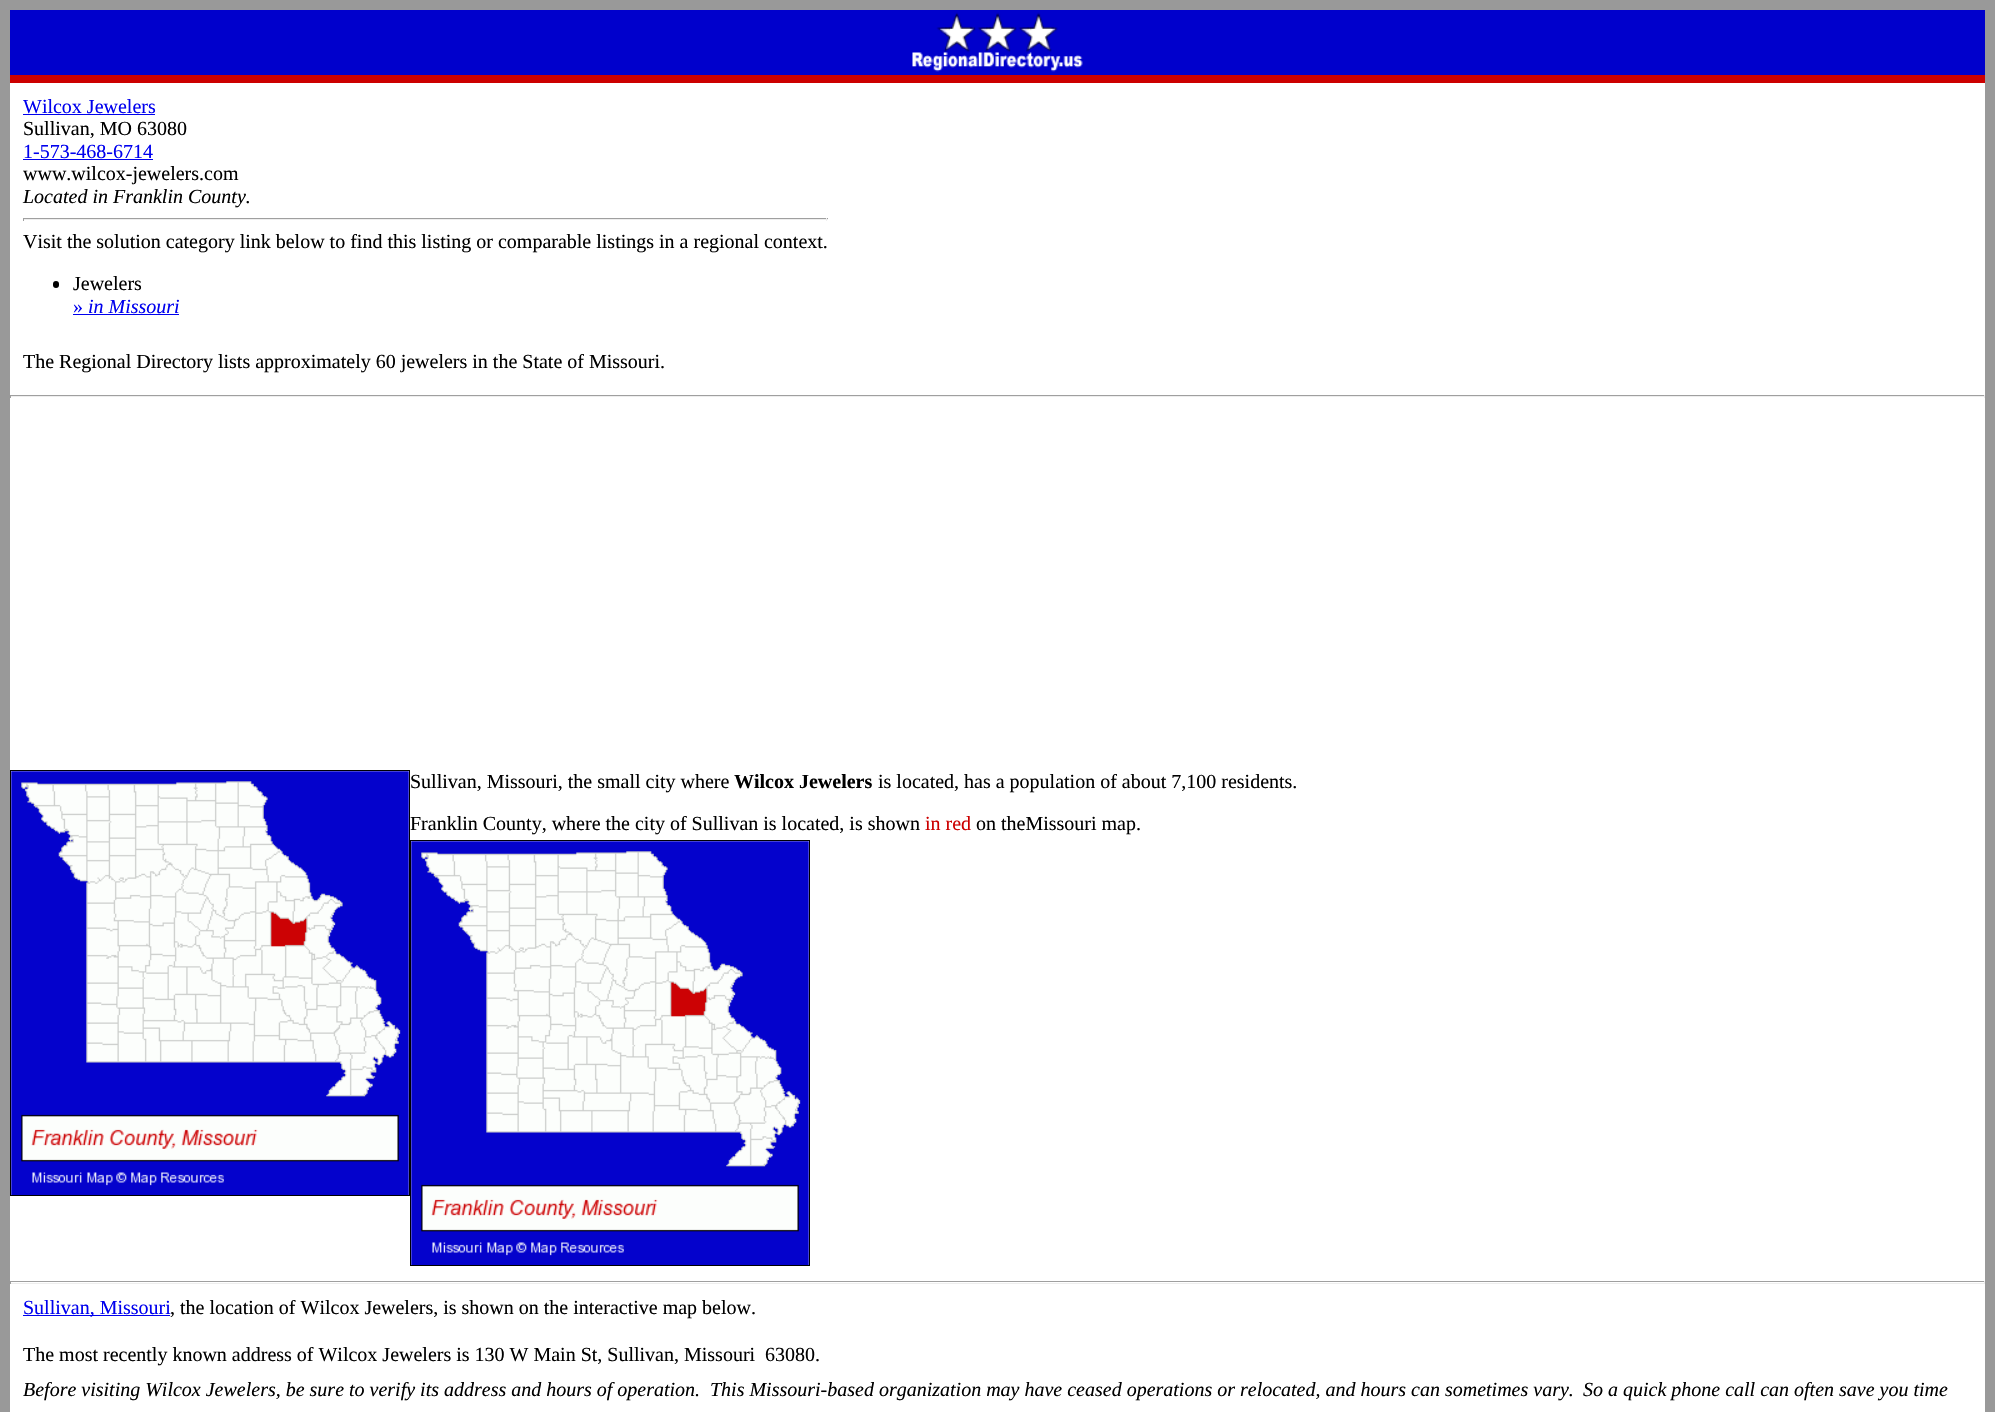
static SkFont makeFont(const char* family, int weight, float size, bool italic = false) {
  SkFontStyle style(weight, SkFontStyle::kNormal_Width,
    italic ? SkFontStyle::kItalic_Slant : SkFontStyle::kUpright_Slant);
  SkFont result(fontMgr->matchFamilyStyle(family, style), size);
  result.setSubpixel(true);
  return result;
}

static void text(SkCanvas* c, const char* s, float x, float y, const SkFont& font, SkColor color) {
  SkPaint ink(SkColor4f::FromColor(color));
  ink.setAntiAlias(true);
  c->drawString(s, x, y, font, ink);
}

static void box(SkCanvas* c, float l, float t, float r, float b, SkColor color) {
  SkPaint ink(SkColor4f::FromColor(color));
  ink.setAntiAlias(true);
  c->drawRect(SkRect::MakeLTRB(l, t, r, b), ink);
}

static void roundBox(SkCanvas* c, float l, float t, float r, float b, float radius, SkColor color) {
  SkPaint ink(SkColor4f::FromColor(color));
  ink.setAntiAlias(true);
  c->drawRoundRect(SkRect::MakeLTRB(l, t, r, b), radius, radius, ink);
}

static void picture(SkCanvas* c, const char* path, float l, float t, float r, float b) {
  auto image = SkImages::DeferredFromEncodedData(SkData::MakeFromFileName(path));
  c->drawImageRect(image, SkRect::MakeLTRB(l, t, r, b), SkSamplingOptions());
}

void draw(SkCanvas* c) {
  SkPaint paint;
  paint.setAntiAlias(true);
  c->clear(0xff999999);
  box(c, 10, 83, 1985, 1412, 0xffffffff);
  box(c, 10, 10, 1985, 75, 0xff0000cc);
  picture(c, "img_01.png", 912, 12, 1083, 72);
  box(c, 10, 75, 1985, 83, 0xffcc0000);
  SkFont face1 = makeFont("Liberation Serif", 400, 20);
  text(c, "Wilcox Jewelers", 23, 113, face1, 0xff0000ee);
  box(c, 23, 114, 155, 115, 0xff0000ee);
  text(c, "Sullivan, MO 63080", 23, 135, face1, 0xff000000);
  text(c, "1-573-468-6714", 23, 158, face1, 0xff0000ee);
  box(c, 23, 159, 153, 160, 0xff0000ee);
  text(c, "www.wilcox-jewelers.com", 23, 180, face1, 0xff000000);
  SkFont face2 = makeFont("Liberation Serif", 400, 20, true);
  text(c, "Located in Franklin County.", 23, 203, face2, 0xff000000);
  box(c, 23, 218, 828, 219, 0xff9f9f9f);
  box(c, 826, 218, 827, 221, 0xffeeeeee);
  box(c, 23, 219, 828, 220, 0xffeeeeee);
  box(c, 23, 218, 24, 221, 0xff9f9f9f);
  text(c, "Visit the solution category link below to find this listing or comparable listings in a regional context.", 23, 248, face1, 0xff000000);
  roundBox(c, 53, 281, 59, 288, 3, 0xff000000);
  text(c, "Jewelers", 73, 290, face1, 0xff000000);
  text(c, "»", 73, 313, face1, 0xff0000ee);
  box(c, 73, 314, 179, 315, 0xff0000ee);
  text(c, "in Missouri", 88, 313, face2, 0xff0000ee);
  text(c, "The Regional Directory lists approximately 60 jewelers in the State of Missouri.", 23, 368, face1, 0xff000000);
  box(c, 10, 395, 1985, 396, 0xff9f9f9f);
  box(c, 1984, 395, 1985, 398, 0xffeeeeee);
  box(c, 10, 396, 1985, 397, 0xffeeeeee);
  box(c, 10, 395, 11, 398, 0xff9f9f9f);
  paint.setStyle(SkPaint::kStroke_Style);
  paint.setStrokeWidth(1);
  paint.setColor(0xff000000);
  c->drawRect(SkRect::MakeLTRB(10.5f, 770.5f, 409.5f, 1195.5f), paint);
  picture(c, "img_02.png", 11, 771, 409, 1195);
  text(c, "Sullivan, Missouri, the small city where", 410, 788, face1, 0xff000000);
  SkFont face3 = makeFont("Liberation Serif", 700, 20);
  text(c, "Wilcox Jewelers", 734, 788, face3, 0xff000000);
  text(c, "is located, has a population of about 7,100 residents.", 878, 788, face1, 0xff000000);
  text(c, "Franklin County, where the city of Sullivan is located, is shown", 410, 830, face1, 0xff000000);
  text(c, "in red", 925, 830, face1, 0xffcc0000);
  text(c, "on theMissouri map.", 976, 830, face1, 0xff000000);
  c->drawRect(SkRect::MakeLTRB(410.5f, 840.5f, 809.5f, 1265.5f), paint);
  picture(c, "img_03.png", 411, 841, 809, 1265);
  box(c, 10, 1281, 1985, 1282, 0xff9f9f9f);
  box(c, 1984, 1281, 1985, 1284, 0xffeeeeee);
  box(c, 10, 1283, 1985, 1284, 0xffeeeeee);
  box(c, 10, 1281, 11, 1284, 0xff9f9f9f);
  box(c, 23, 1315, 170, 1316, 0xff0000ee);
  text(c, "Sullivan, Missouri", 23, 1314, face1, 0xff0000ee);
  text(c, ", the location of Wilcox Jewelers, is shown on the interactive map below.", 170, 1314, face1, 0xff000000);
  text(c, "The most recently known address of Wilcox Jewelers is 130 W Main St, Sullivan, Missouri  63080.", 23, 1361, face1, 0xff000000);
  text(c, "Before visiting Wilcox Jewelers, be sure to verify its address and hours of operation.", 23, 1396, face2, 0xff000000);
  text(c, "This Missouri-based organization may have ceased operations or relocated, and hours can sometimes vary.", 710, 1396, face2, 0xff000000);
  text(c, "So a quick phone call can often save you time", 1583, 1396, face2, 0xff000000);
}
